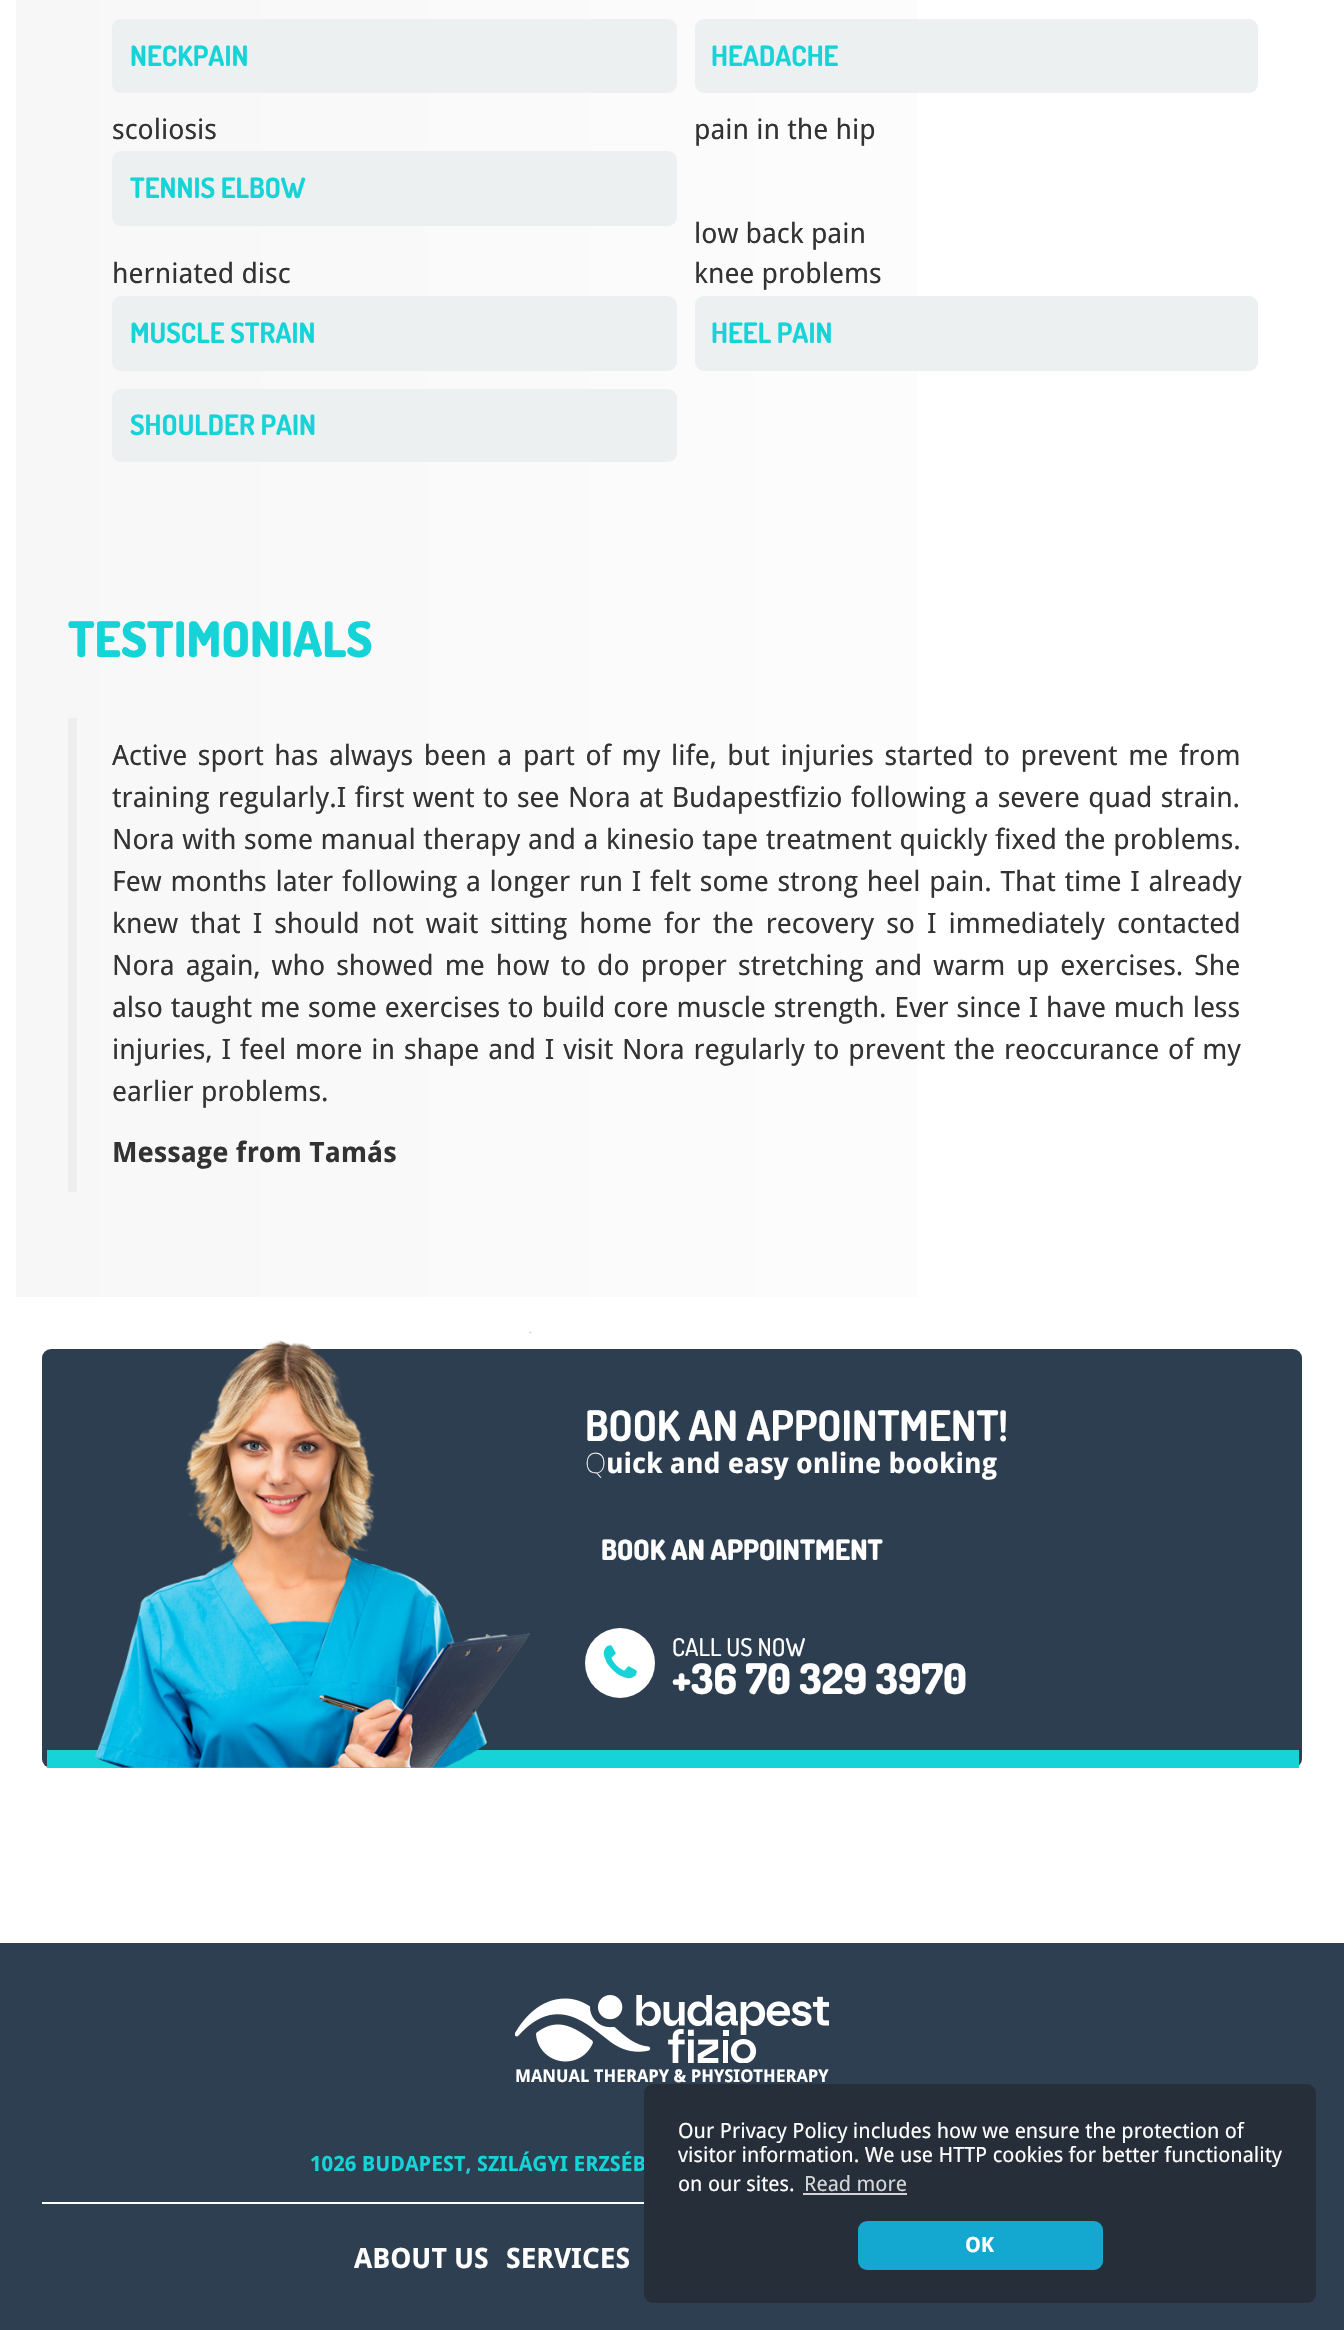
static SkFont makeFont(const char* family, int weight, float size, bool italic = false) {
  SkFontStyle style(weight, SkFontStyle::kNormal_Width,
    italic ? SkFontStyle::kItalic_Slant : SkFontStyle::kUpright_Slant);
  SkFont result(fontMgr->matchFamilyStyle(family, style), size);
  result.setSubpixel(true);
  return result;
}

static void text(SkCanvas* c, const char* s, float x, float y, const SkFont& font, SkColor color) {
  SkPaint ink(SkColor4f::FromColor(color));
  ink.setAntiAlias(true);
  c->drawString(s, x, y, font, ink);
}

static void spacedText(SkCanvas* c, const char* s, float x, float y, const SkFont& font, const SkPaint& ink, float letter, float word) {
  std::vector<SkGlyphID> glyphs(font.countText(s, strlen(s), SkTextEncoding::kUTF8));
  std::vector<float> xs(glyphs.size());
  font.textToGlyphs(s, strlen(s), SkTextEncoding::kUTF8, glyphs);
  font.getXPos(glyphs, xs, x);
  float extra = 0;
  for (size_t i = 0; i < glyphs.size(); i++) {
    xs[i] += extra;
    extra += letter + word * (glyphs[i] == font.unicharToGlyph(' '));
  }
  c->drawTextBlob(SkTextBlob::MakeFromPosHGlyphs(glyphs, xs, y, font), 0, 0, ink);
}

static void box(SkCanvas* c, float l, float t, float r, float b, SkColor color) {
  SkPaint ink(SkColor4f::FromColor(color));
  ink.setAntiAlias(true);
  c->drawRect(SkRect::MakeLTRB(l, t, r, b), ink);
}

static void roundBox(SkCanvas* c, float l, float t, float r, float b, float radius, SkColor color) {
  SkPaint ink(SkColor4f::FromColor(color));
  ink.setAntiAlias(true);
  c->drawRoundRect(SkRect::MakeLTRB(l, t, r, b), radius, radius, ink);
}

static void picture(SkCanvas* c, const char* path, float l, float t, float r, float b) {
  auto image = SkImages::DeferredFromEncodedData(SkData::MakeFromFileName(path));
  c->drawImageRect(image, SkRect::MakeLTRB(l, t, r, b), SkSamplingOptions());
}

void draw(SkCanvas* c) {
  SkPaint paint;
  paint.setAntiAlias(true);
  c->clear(0xff2d3f50);
  box(c, 0, 0, 1344, 1943, 0xffffffff);
  {
    const SkColor colors[] = {0xfff7f7f7, 0xffffffff};
    const float stops[] = {0, 1};
    const SkPoint ends[] = {{16, 561}, {1328, 561}};
    paint.setShader(SkGradientShader::MakeLinear(ends, colors, stops, 2, SkTileMode::kClamp));
    paint.setAlpha(255);
  }
  c->drawRect(SkRect::MakeLTRB(16, 0, 918, 1297), paint);
  roundBox(c, 112, 19, 677, 93, 9, 0xffecf0f1);
  SkFont face1 = makeFont("Dosis", 700, 28);
  text(c, "NECKPAIN", 130, 66, face1, 0xff16d3d7);
  roundBox(c, 695, 19, 1258, 93, 9, 0xffecf0f1);
  text(c, "HEADACHE", 711, 66, face1, 0xff16d3d7);
  SkFont face2 = makeFont("Droid Sans", 400, 28);
  text(c, "scoliosis", 112, 139, face2, 0xff333333);
  text(c, "pain in the hip", 694, 139, face2, 0xff333333);
  roundBox(c, 112, 151, 677, 226, 9, 0xffecf0f1);
  text(c, "TENNIS ELBOW", 130, 198, face1, 0xff16d3d7);
  text(c, "low back pain", 694, 243, face2, 0xff333333);
  text(c, "herniated disc", 112, 283, face2, 0xff333333);
  text(c, "knee problems", 694, 283, face2, 0xff333333);
  roundBox(c, 112, 296, 677, 371, 9, 0xffecf0f1);
  text(c, "MUSCLE STRAIN", 130, 343, face1, 0xff16d3d7);
  roundBox(c, 695, 296, 1258, 371, 9, 0xffecf0f1);
  text(c, "HEEL PAIN", 711, 343, face1, 0xff16d3d7);
  roundBox(c, 112, 389, 677, 462, 9, 0xffecf0f1);
  text(c, "SHOULDER PAIN", 130, 435, face1, 0xff16d3d7);
  SkFont face3 = makeFont("Dosis", 800, 49);
  text(c, "TESTIMONIALS", 68, 657, face3, 0xff16d3d7);
  box(c, 68, 718, 77, 1192, 0xffeeeeee);
  paint.setShader(nullptr);
  paint.setColor(0xff333333);
  spacedText(c, "Active sport has always been a part of my life, but injuries started to prevent me from", 112, 765, face2, paint, 0, 3.4f);
  spacedText(c, "training regularly.I first went to see Nora at Budapestfizio following a severe quad strain.", 112, 807, face2, paint, 0, 1.1f);
  spacedText(c, "Nora with some manual therapy and a kinesio tape treatment quickly fixed the problems.", 112, 849, face2, paint, 0, 0.4f);
  spacedText(c, "Few months later following a longer run I felt some strong heel pain. That time I already", 112, 891, face2, paint, 0, 1.5f);
  spacedText(c, "knew that I should not wait sitting home for the recovery so I immediately contacted", 112, 933, face2, paint, 0, 4.75f);
  spacedText(c, "Nora again, who showed me how to do proper stretching and warm up exercises. She", 112, 975, face2, paint, 0, 3.75f);
  spacedText(c, "also taught me some exercises to build core muscle strength. Ever since I have much less", 112, 1017, face2, paint, 0, 0.6f);
  spacedText(c, "injuries, I feel more in shape and I visit Nora regularly to prevent the reoccurance of my", 112, 1059, face2, paint, 0, 1.6f);
  text(c, "earlier problems.", 112, 1101, face2, 0xff333333);
  SkFont face4 = makeFont("Droid Sans", 700, 28);
  text(c, "Message from Tamás", 112, 1162, face4, 0xff333333);
  roundBox(c, 42, 1349, 1302, 1768, 9, 0xff2c3e50);
  box(c, 47, 1750, 1299, 1768, 0xff16d3d7);
  picture(c, "img_01.png", 94, 1331, 532, 1768);
  SkFont face5 = makeFont("Dosis", 700, 42);
  text(c, "BOOK AN APPOINTMENT!", 585, 1441, face5, 0xffffffff);
  SkFont face6 = makeFont("Noto Sans", 100, 28);
  text(c, "Q", 585, 1473, face6, 0xffffffff);
  text(c, "uick and easy online booking", 606, 1473, face4, 0xffffffff);
  SkFont face7 = makeFont("Dosis", 800, 28);
  text(c, "BOOK AN APPOINTMENT", 601, 1560, face7, 0xffffffff);
  paint.setColor(0xffffffff);
  c->drawCircle(620, 1663, 35, paint);
  picture(c, "img_02.png", 603, 1645, 637, 1679);
  SkFont face8 = makeFont("Dosis", 500, 24.5f);
  text(c, "CALL US NOW", 672, 1656, face8, 0xffffffff);
  SkFont face9 = makeFont("Dosis", 800, 42);
  text(c, "+36 70 329 3970", 672, 1694, face9, 0xffffffff);
  picture(c, "img_03.png", 515, 1995, 829, 2063);
  SkFont face10 = makeFont("Droid Sans", 700, 17.5f);
  text(c, "MANUAL THERAPY & PHYSIOTHERAPY", 515, 2082, face10, 0xffffffff);
  box(c, 42, 2202, 644, 2204, 0xffffffff);
  SkFont face11 = makeFont("Droid Sans", 700, 21);
  text(c, "1026 BUDAPEST, SZILÁGYI ERZSÉB", 310, 2171, face11, 0xff16d3d7);
  text(c, "ABOUT US", 354, 2268, face4, 0xffffffff);
  text(c, "SERVICES", 506, 2268, face4, 0xffffffff);
  roundBox(c, 644, 2084, 1316, 2303, 9, 0xff252e39);
  SkFont face12 = makeFont("Droid Sans", 400, 21);
  text(c, "Our Privacy Policy includes how we ensure the protection of", 678, 2138, face12, 0xffffffff);
  text(c, "visitor information. We use HTTP cookies for better functionality", 678, 2162, face12, 0xffffffff);
  text(c, "on our sites.", 678, 2191, face12, 0xffffffff);
  text(c, "Read more", 804, 2191, face12, 0xffd3d5d7);
  box(c, 803, 2193, 907, 2195, 0xffd3d5d7);
  roundBox(c, 858, 2221, 1103, 2270, 9, 0xff14a7d0);
  text(c, "OK", 965, 2252, face11, 0xffffffff);
}
